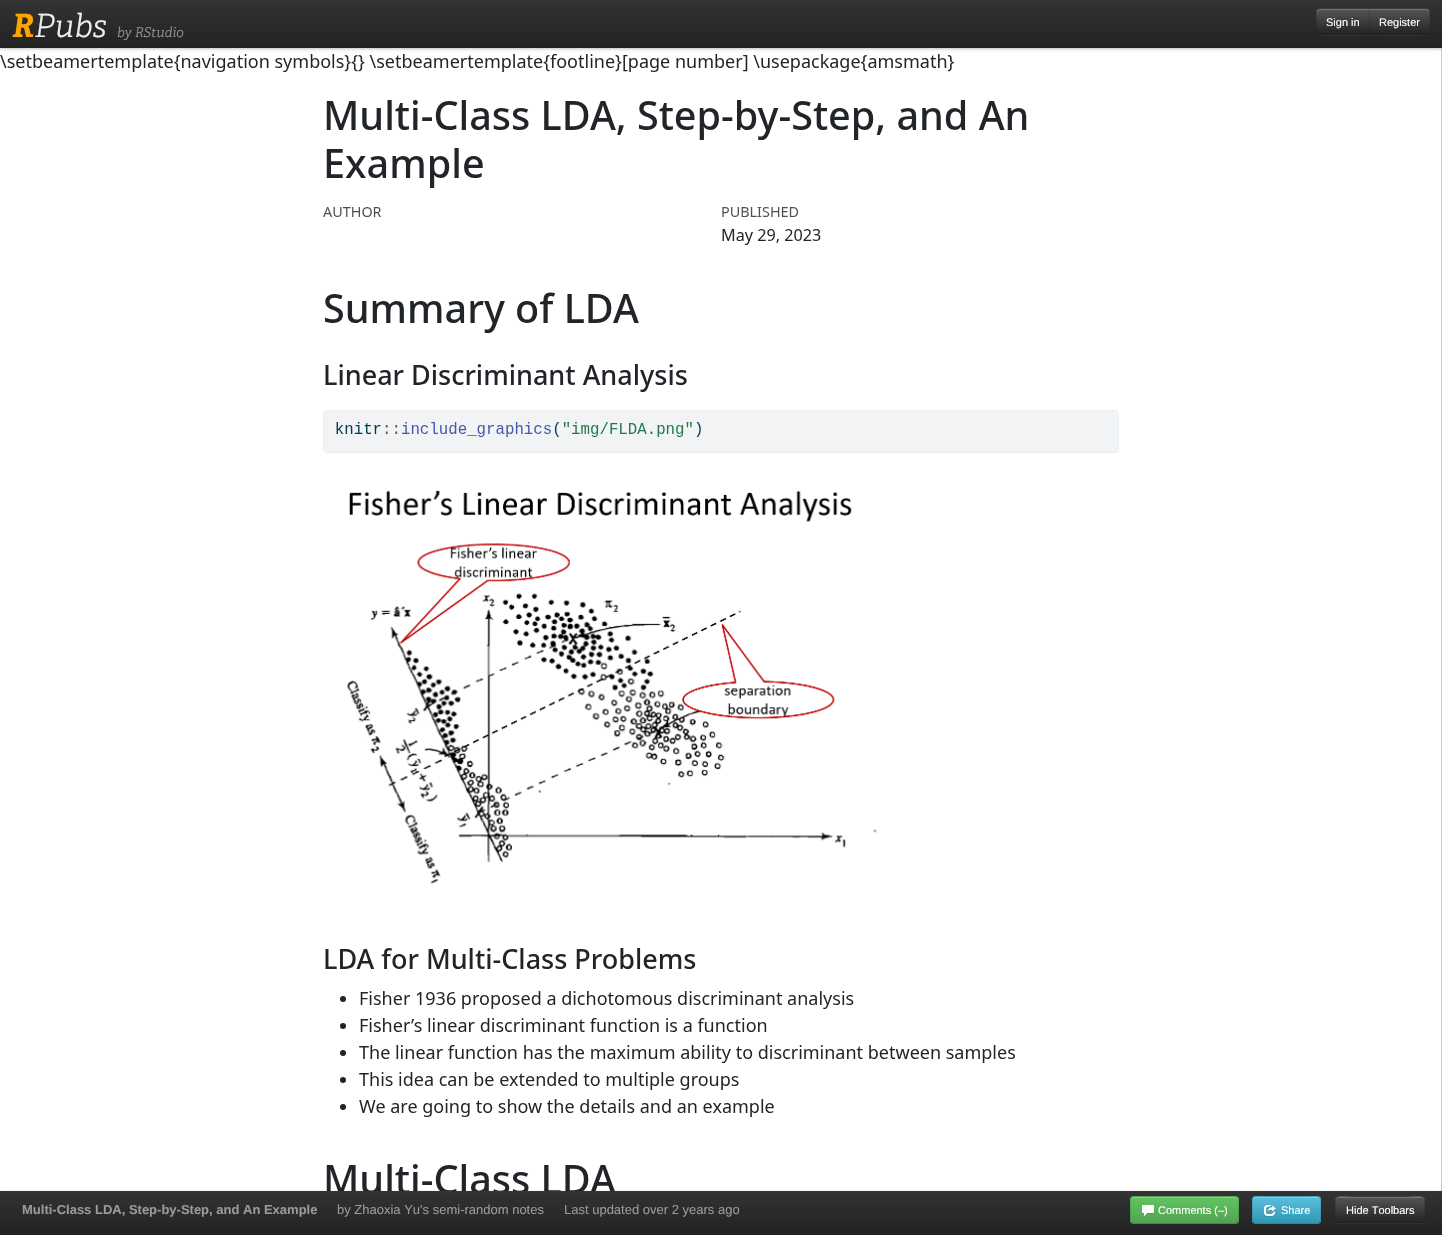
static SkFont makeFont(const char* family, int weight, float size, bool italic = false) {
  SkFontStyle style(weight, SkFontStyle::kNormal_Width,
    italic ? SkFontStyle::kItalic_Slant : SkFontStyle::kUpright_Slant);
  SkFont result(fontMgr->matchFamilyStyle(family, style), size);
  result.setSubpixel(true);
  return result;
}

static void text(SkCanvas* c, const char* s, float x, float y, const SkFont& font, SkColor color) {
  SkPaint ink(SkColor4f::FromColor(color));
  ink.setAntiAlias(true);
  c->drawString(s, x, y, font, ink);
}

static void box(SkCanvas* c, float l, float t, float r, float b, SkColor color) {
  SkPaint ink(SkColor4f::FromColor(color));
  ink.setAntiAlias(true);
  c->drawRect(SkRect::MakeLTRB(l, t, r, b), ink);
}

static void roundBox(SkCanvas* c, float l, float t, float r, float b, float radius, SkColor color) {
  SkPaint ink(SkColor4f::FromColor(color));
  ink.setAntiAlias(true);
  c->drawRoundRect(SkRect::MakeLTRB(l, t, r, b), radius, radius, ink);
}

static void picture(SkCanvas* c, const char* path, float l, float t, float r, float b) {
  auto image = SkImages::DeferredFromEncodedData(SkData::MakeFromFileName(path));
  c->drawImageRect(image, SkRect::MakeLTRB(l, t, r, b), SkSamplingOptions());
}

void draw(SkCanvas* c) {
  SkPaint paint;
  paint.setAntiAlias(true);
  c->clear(0xffffffff);
  picture(c, "img_01.png", 0, 48, 1441, 1191);
  box(c, 1441, 48, 1442, 1195, 0xffcccccc);
  paint.setColor(0x40000000);
  paint.setMaskFilter(SkMaskFilter::MakeBlur(kNormal_SkBlurStyle, 1.5f));
  c->drawRect(SkRect::MakeLTRB(0, 1, 1442, 49), paint);
  paint.setMaskFilter(nullptr);
  {
    const SkColor colors[] = {0xff333333, 0xff222222};
    const float stops[] = {0, 1};
    const SkPoint ends[] = {{721, 0}, {721, 48}};
    paint.setShader(SkGradientShader::MakeLinear(ends, colors, stops, 2, SkTileMode::kClamp));
    paint.setAlpha(255);
  }
  c->drawRect(SkRect::MakeLTRB(0, 0, 1442, 47), paint);
  box(c, 0, 47, 1442, 48, 0xff1f1f1f);
  SkFont face1 = makeFont("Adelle", 700, 32, true);
  text(c, "R", 12, 37, face1, 0xffffa500);
  SkFont face2 = makeFont("Adelle", 300, 32, true);
  text(c, "Pubs", 34, 37, face2, 0xffeeeeee);
  SkFont face3 = makeFont("Adelle", 300, 13.5f, true);
  text(c, "by RStudio", 117, 37, face3, 0xff999999);
  paint.setShader(nullptr);
  paint.setColor(0xff414141);
  c->drawPath(SkPathBuilder().moveTo(1320, 8).lineTo(1370, 8).lineTo(1370, 36).lineTo(1320, 36).cubicTo(1318, 36, 1316, 34, 1316, 32).lineTo(1316, 12).cubicTo(1316, 10, 1318, 8, 1320, 8).close().detach(), paint);
  c->save();
  c->clipPath(SkPathBuilder().moveTo(1320, 8).lineTo(1370, 8).lineTo(1370, 36).lineTo(1320, 36).cubicTo(1318, 36, 1316, 34, 1316, 32).lineTo(1316, 12).cubicTo(1316, 10, 1318, 8, 1320, 8).close().detach(), true);
  {
    const SkColor colors[] = {0xff555555, 0xff222222};
    const float stops[] = {0, 1};
    const SkPoint ends[] = {{1343, 9}, {1343, 35}};
    paint.setShader(SkGradientShader::MakeLinear(ends, colors, stops, 2, SkTileMode::kClamp));
    paint.setAlpha(255);
  }
  c->drawRect(SkRect::MakeLTRB(1316, 9, 1369, 35), paint);
  c->restore();
  paint.setShader(nullptr);
  paint.setColor(0xff767676);
  c->drawPath(SkPathBuilder().moveTo(1320, 10).lineTo(1369, 10).lineTo(1369, 9).lineTo(1320, 9).cubicTo(1318, 9, 1317, 10, 1317, 12).lineTo(1317, 13).cubicTo(1317, 11, 1318, 10, 1320, 10).close().detach(), paint);
  paint.setColor(0x1a000000);
  c->drawPath(SkPathBuilder().moveTo(1320, 8).lineTo(1317, 9).lineTo(1318, 10).cubicTo(1320, 8, 1363, 9, 1369, 9).lineTo(1370, 8).close().detach(), paint);
  paint.setColor(0x40000000);
  c->drawPath(SkPathBuilder().moveTo(1370, 36).lineTo(1369, 35).cubicTo(1363, 35, 1320, 36, 1318, 34).lineTo(1317, 35).lineTo(1320, 36).close().detach(), paint);
  paint.setColor(0x1a000000);
  c->drawPath(SkPathBuilder().moveTo(1316, 12).lineTo(1316, 32).cubicTo(1316, 33, 1316.5f, 34, 1317, 35).lineTo(1318, 34).cubicTo(1317, 34, 1317, 33, 1317, 32).lineTo(1317, 12).cubicTo(1317, 11, 1317, 10, 1318, 10).lineTo(1317, 9).cubicTo(1316.5f, 10, 1316, 11, 1316, 12).close().detach(), paint);
  SkFont face4 = makeFont("Liberation Sans", 400, 11);
  text(c, "Sign in", 1326, 26, face4, 0xffffffff);
  paint.setColor(0xff414141);
  c->drawPath(SkPathBuilder().moveTo(1369, 8).lineTo(1426, 8).cubicTo(1428, 8, 1430, 10, 1430, 12).lineTo(1430, 32).cubicTo(1430, 34, 1428, 36, 1426, 36).lineTo(1369, 36).close().detach(), paint);
  c->save();
  c->clipPath(SkPathBuilder().moveTo(1369, 8).lineTo(1426, 8).cubicTo(1428, 8, 1430, 10, 1430, 12).lineTo(1430, 32).cubicTo(1430, 34, 1428, 36, 1426, 36).lineTo(1369, 36).close().detach(), true);
  {
    const SkColor colors[] = {0xff555555, 0xff222222};
    const float stops[] = {0, 1};
    const SkPoint ends[] = {{1400, 9}, {1400, 35}};
    paint.setShader(SkGradientShader::MakeLinear(ends, colors, stops, 2, SkTileMode::kClamp));
    paint.setAlpha(255);
  }
  c->drawRect(SkRect::MakeLTRB(1369, 9, 1430, 35), paint);
  c->restore();
  paint.setShader(nullptr);
  paint.setColor(0xff767676);
  c->drawPath(SkPathBuilder().moveTo(1370, 10).lineTo(1426, 10).cubicTo(1428, 10, 1429, 11, 1429, 13).lineTo(1429, 12).cubicTo(1429, 10, 1428, 9, 1426, 9).lineTo(1370, 9).close().detach(), paint);
  paint.setColor(0x1a000000);
  c->drawPath(SkPathBuilder().moveTo(1369, 8).lineTo(1370, 9).cubicTo(1377, 9, 1426, 8, 1428, 10).lineTo(1429, 9).lineTo(1426, 8).close().detach(), paint);
  c->drawPath(SkPathBuilder().moveTo(1430, 32).lineTo(1430, 12).cubicTo(1430, 11, 1429.5f, 10, 1429, 9).lineTo(1428, 10).cubicTo(1429, 10, 1429, 11, 1429, 12).lineTo(1429, 32).cubicTo(1429, 33, 1429, 34, 1428, 34).lineTo(1429, 35).cubicTo(1429.5f, 34, 1430, 33, 1430, 32).close().detach(), paint);
  paint.setColor(0x40000000);
  c->drawPath(SkPathBuilder().moveTo(1426, 36).lineTo(1429, 35).lineTo(1428, 34).cubicTo(1426, 36, 1377, 35, 1370, 35).lineTo(1369, 36).close().detach(), paint);
  paint.setColor(0x1a000000);
  c->drawPath(SkPathBuilder().moveTo(1369, 8).lineTo(1369, 36).lineTo(1370, 35).lineTo(1370, 9).close().detach(), paint);
  text(c, "Register", 1379, 26, face4, 0xffffffff);
  paint.setColor(0x40000000);
  paint.setMaskFilter(SkMaskFilter::MakeBlur(kNormal_SkBlurStyle, 1.5f));
  c->drawRect(SkRect::MakeLTRB(0, 1192, 1442, 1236), paint);
  paint.setMaskFilter(nullptr);
  {
    const SkColor colors[] = {0xff333333, 0xff222222};
    const float stops[] = {0, 1};
    const SkPoint ends[] = {{721, 1191}, {721, 1235}};
    paint.setShader(SkGradientShader::MakeLinear(ends, colors, stops, 2, SkTileMode::kClamp));
    paint.setAlpha(255);
  }
  c->drawRect(SkRect::MakeLTRB(0, 1191, 1442, 1234), paint);
  box(c, 0, 1234, 1442, 1235, 0xff1f1f1f);
  SkFont face5 = makeFont("Liberation Sans", 700, 13);
  text(c, "Multi-Class LDA, Step-by-Step, and An Example", 22, 1214, face5, 0xff999999);
  SkFont face6 = makeFont("Liberation Sans", 400, 13);
  text(c, "by Zhaoxia Yu's semi-random notes", 337, 1214, face6, 0xff999999);
  text(c, "Last updated over 2 years ago", 564, 1214, face6, 0xff999999);
  roundBox(c, 1130, 1196, 1239, 1224, 4, 0xff5bb75b);
  c->save();
  c->clipPath(SkPathBuilder().moveTo(1134, 1196).lineTo(1235, 1196).cubicTo(1237, 1196, 1239, 1198, 1239, 1200).lineTo(1239, 1220).cubicTo(1239, 1222, 1237, 1224, 1235, 1224).lineTo(1134, 1224).cubicTo(1132, 1224, 1130, 1222, 1130, 1220).lineTo(1130, 1200).cubicTo(1130, 1198, 1132, 1196, 1134, 1196).close().detach(), true);
  {
    const SkColor colors[] = {0xff62c462, 0xff51a351};
    const float stops[] = {0, 1};
    const SkPoint ends[] = {{1185, 1197}, {1185, 1223}};
    paint.setShader(SkGradientShader::MakeLinear(ends, colors, stops, 2, SkTileMode::kClamp));
    paint.setAlpha(255);
  }
  c->drawRect(SkRect::MakeLTRB(1130, 1197, 1239, 1223), paint);
  c->restore();
  paint.setShader(nullptr);
  paint.setColor(0xff81cf81);
  c->drawPath(SkPathBuilder(SkPathFillType::kEvenOdd).moveTo(1134, 1198).lineTo(1236, 1198).cubicTo(1237, 1198, 1238, 1200, 1238, 1201).lineTo(1238, 1200).cubicTo(1238, 1198, 1237, 1197, 1235, 1197).lineTo(1134, 1197).cubicTo(1132, 1197, 1131, 1198, 1131, 1200).cubicTo(1131, 1199, 1132, 1198, 1134, 1198).close().moveTo(1238, 1218).lineTo(1238, 1221).close().detach(), paint);
  paint.setStyle(SkPaint::kStroke_Style);
  paint.setStrokeWidth(1);
  paint.setColor(0x40000000);
  c->drawPath(SkPathBuilder().moveTo(1237.5f, 1222.5f).lineTo(1235, 1223.5f).lineTo(1133.5f, 1223.5f).lineTo(1131.5f, 1222.5f).detach(), paint);
  paint.setColor(0x1a000000);
  c->drawPath(SkPathBuilder().moveTo(1131.5f, 1222.5f).cubicTo(1129.5f, 1220.5f, 1130.5f, 1216, 1130.5f, 1213.5f).cubicTo(1130.5f, 1192.5f, 1127.5f, 1196.5f, 1151, 1196.5f).lineTo(1218, 1196.5f).cubicTo(1241.5f, 1196.5f, 1238.5f, 1192.5f, 1238.5f, 1213.5f).cubicTo(1238.5f, 1216, 1239.5f, 1220.5f, 1237.5f, 1222.5f).detach(), paint);
  picture(c, "img_02.png", 1142, 1205, 1154, 1217);
  text(c, "Comments (–)", 1158, 1214, face4, 0xffffffff);
  roundBox(c, 1252, 1196, 1321, 1224, 4, 0xff49afcd);
  c->save();
  c->clipPath(SkPathBuilder().moveTo(1256, 1196).lineTo(1317, 1196).cubicTo(1319, 1196, 1321, 1198, 1321, 1200).lineTo(1321, 1220).cubicTo(1321, 1222, 1319, 1224, 1317, 1224).lineTo(1256, 1224).cubicTo(1254, 1224, 1252, 1222, 1252, 1220).lineTo(1252, 1200).cubicTo(1252, 1198, 1254, 1196, 1256, 1196).close().detach(), true);
  paint.setStyle(SkPaint::kFill_Style);
  {
    const SkColor colors[] = {0xff5bc0de, 0xff2f96b4};
    const float stops[] = {0, 1};
    const SkPoint ends[] = {{1287, 1197}, {1287, 1223}};
    paint.setShader(SkGradientShader::MakeLinear(ends, colors, stops, 2, SkTileMode::kClamp));
    paint.setAlpha(255);
  }
  c->drawRect(SkRect::MakeLTRB(1252, 1197, 1321, 1223), paint);
  c->restore();
  paint.setShader(nullptr);
  paint.setColor(0x33ffffff);
  c->drawPath(SkPathBuilder().moveTo(1256, 1198).lineTo(1317, 1198).cubicTo(1319, 1198, 1320, 1199, 1320, 1201).cubicTo(1320, 1194, 1311, 1197, 1307, 1197).lineTo(1266, 1197).cubicTo(1262, 1197, 1253, 1194, 1253, 1201).cubicTo(1253, 1199, 1254, 1198, 1256, 1198).close().detach(), paint);
  paint.setStyle(SkPaint::kStroke_Style);
  paint.setColor(0x40000000);
  c->drawPath(SkPathBuilder().moveTo(1319.5f, 1222.5f).lineTo(1317.5f, 1223.5f).lineTo(1255.5f, 1223.5f).lineTo(1253.5f, 1222.5f).detach(), paint);
  paint.setColor(0x1a000000);
  c->drawPath(SkPathBuilder().moveTo(1253.5f, 1222.5f).cubicTo(1251.5f, 1220, 1252.5f, 1212.5f, 1252.5f, 1210).cubicTo(1252.5f, 1195, 1250.5f, 1196.5f, 1266, 1196.5f).lineTo(1307, 1196.5f).cubicTo(1322.5f, 1196.5f, 1320.5f, 1195, 1320.5f, 1210).cubicTo(1320.5f, 1212.5f, 1321.5f, 1220, 1319.5f, 1222.5f).detach(), paint);
  picture(c, "img_03.png", 1264, 1205, 1276, 1217);
  text(c, "Share", 1281, 1214, face4, 0xffffffff);
  roundBox(c, 1335, 1196, 1425, 1224, 4, 0xff414141);
  c->save();
  c->clipPath(SkPathBuilder().moveTo(1339, 1196).lineTo(1421, 1196).cubicTo(1423, 1196, 1425, 1198, 1425, 1200).lineTo(1425, 1220).cubicTo(1425, 1222, 1423, 1224, 1421, 1224).lineTo(1339, 1224).cubicTo(1337, 1224, 1335, 1222, 1335, 1220).lineTo(1335, 1200).cubicTo(1335, 1198, 1337, 1196, 1339, 1196).close().detach(), true);
  paint.setStyle(SkPaint::kFill_Style);
  {
    const SkColor colors[] = {0xff555555, 0xff222222};
    const float stops[] = {0, 1};
    const SkPoint ends[] = {{1380, 1197}, {1380, 1223}};
    paint.setShader(SkGradientShader::MakeLinear(ends, colors, stops, 2, SkTileMode::kClamp));
    paint.setAlpha(255);
  }
  c->drawRect(SkRect::MakeLTRB(1335, 1197, 1425, 1223), paint);
  c->restore();
  paint.setShader(nullptr);
  paint.setColor(0x33ffffff);
  c->drawPath(SkPathBuilder().moveTo(1339, 1198).lineTo(1421, 1198).cubicTo(1423, 1198, 1424, 1199, 1424, 1201).cubicTo(1424, 1193, 1411, 1197, 1407, 1197).lineTo(1353, 1197).cubicTo(1349, 1197, 1336, 1193, 1336, 1201).cubicTo(1336, 1199, 1337, 1198, 1339, 1198).close().detach(), paint);
  paint.setStyle(SkPaint::kStroke_Style);
  paint.setColor(0x40000000);
  c->drawPath(SkPathBuilder().moveTo(1423.5f, 1222.5f).lineTo(1421.5f, 1223.5f).lineTo(1338.5f, 1223.5f).lineTo(1336.5f, 1222.5f).detach(), paint);
  paint.setColor(0x1a000000);
  c->drawPath(SkPathBuilder().moveTo(1336.5f, 1222.5f).cubicTo(1334.5f, 1220.5f, 1335.5f, 1216, 1335.5f, 1213.5f).cubicTo(1335.5f, 1194, 1332.5f, 1196.5f, 1352.5f, 1196.5f).lineTo(1407.5f, 1196.5f).cubicTo(1427.5f, 1196.5f, 1424.5f, 1194, 1424.5f, 1213.5f).cubicTo(1424.5f, 1216, 1425.5f, 1220.5f, 1423.5f, 1222.5f).detach(), paint);
  text(c, "Hide Toolbars", 1346, 1214, face4, 0xffffffff);
}
